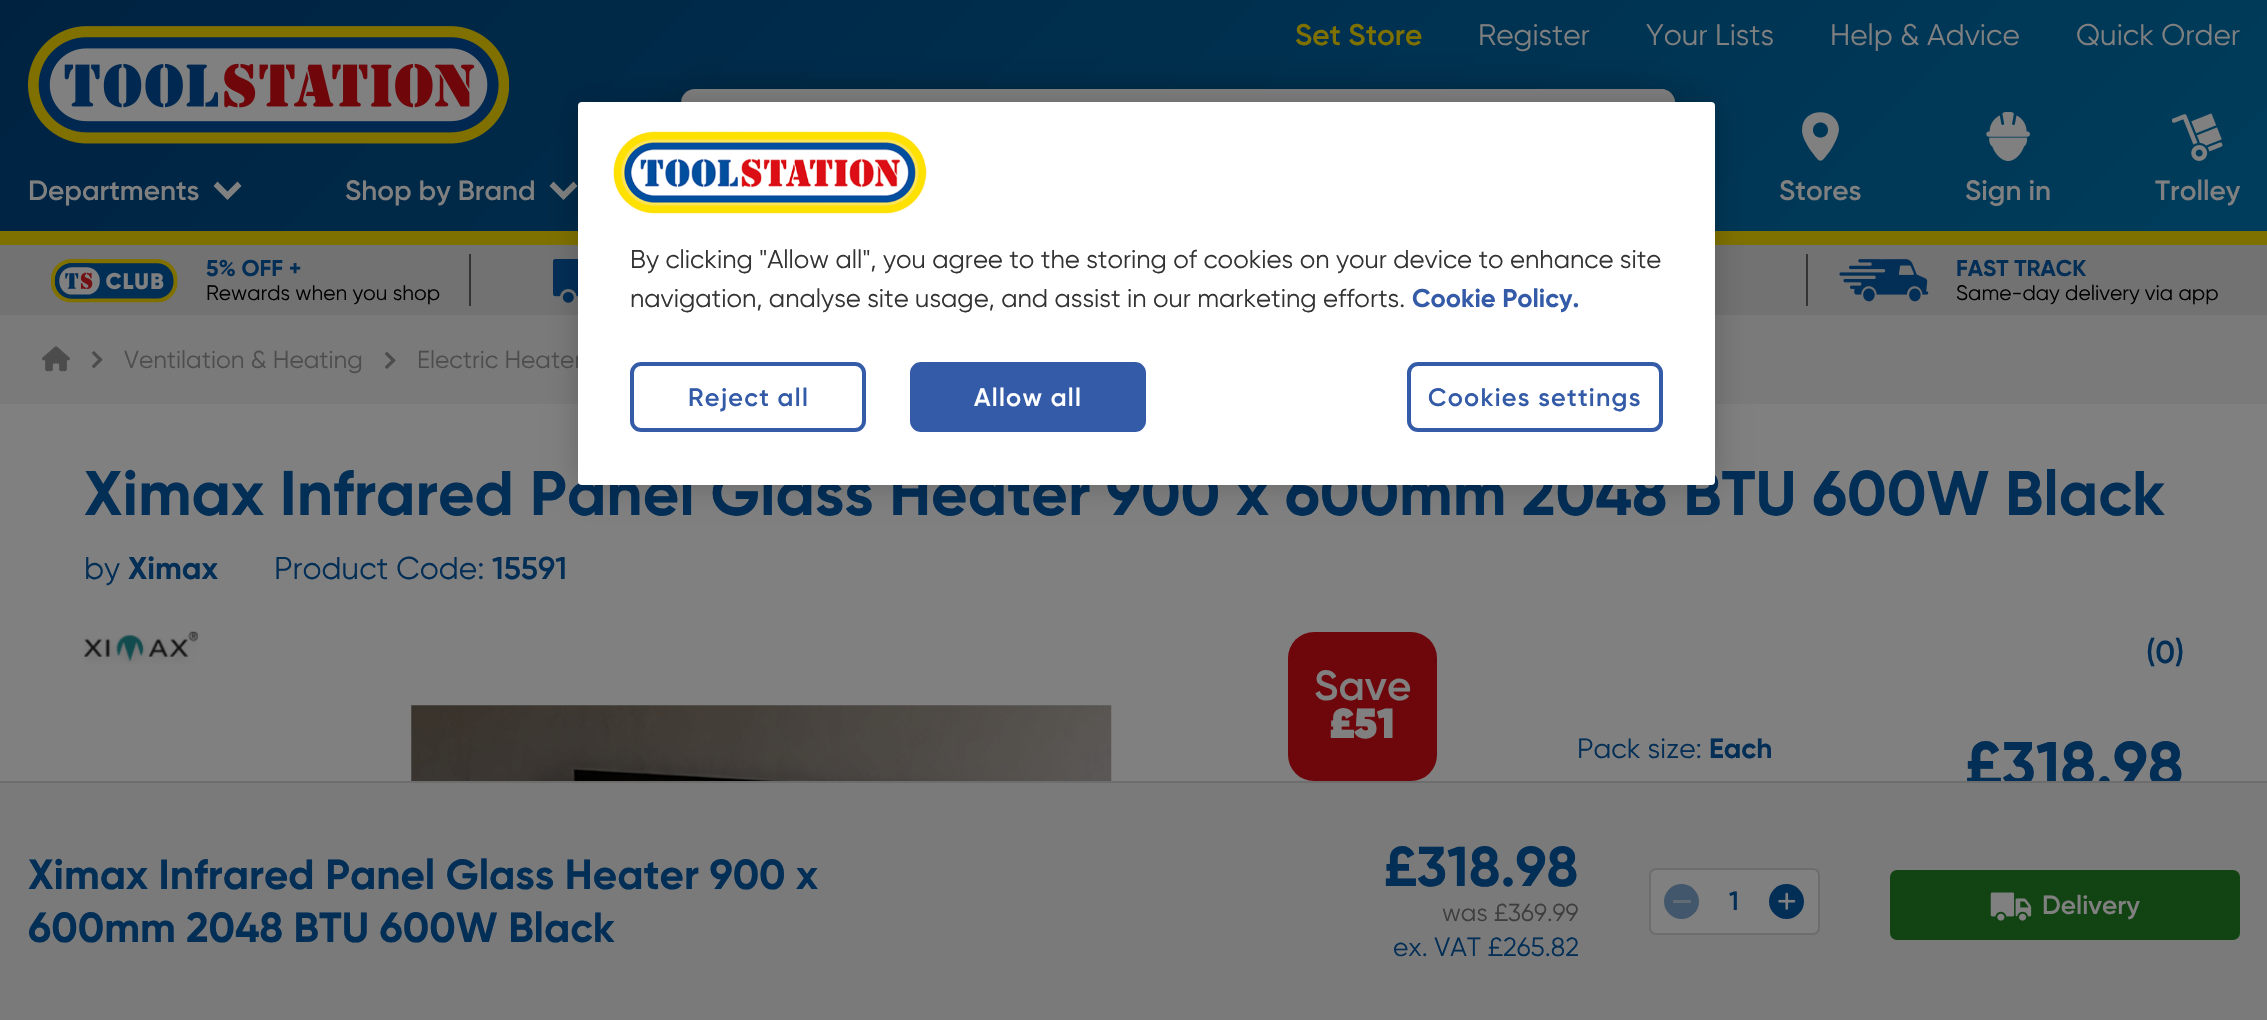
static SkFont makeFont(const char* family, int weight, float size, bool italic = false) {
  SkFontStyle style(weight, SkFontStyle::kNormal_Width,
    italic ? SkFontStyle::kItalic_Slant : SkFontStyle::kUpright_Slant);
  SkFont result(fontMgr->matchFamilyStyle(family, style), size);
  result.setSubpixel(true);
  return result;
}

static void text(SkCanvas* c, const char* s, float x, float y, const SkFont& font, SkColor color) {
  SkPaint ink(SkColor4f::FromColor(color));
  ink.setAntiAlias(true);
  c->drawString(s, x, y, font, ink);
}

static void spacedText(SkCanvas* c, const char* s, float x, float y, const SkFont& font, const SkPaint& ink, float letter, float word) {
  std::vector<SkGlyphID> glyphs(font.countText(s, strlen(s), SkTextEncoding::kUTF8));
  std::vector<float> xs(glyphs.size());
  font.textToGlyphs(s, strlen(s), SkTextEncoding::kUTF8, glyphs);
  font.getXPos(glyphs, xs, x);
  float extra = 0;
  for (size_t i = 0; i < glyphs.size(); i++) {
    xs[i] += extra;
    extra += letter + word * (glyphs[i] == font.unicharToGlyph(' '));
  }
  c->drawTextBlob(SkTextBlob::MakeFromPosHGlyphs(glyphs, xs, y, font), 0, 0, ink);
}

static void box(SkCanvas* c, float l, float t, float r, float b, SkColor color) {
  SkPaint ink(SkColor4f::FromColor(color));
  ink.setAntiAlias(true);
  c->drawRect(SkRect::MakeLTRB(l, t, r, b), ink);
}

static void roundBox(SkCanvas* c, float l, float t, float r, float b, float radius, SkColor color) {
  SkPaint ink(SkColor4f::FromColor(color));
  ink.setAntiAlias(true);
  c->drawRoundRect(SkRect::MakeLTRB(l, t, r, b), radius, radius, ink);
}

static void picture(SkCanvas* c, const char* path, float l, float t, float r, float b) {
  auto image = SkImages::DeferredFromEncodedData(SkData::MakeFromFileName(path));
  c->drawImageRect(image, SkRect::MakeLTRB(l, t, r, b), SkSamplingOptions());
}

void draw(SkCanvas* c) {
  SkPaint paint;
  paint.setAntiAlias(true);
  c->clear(0xffffffff);
  {
    const SkColor colors[] = {0xff003d5c, 0xff002241};
    const float stops[] = {0, 1};
    const SkPoint ends[] = {{1762, 751}, {506, -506}};
    paint.setShader(SkGradientShader::MakeLinear(ends, colors, stops, 2, SkTileMode::kClamp));
    paint.setAlpha(255);
  }
  c->drawRect(SkRect::MakeLTRB(0, 0, 2267, 231), paint);
  picture(c, "img_01.png", 28, 26, 509, 144);
  SkFont face1 = makeFont("Gilroy", 600, 29.75f);
  text(c, "Set Store", 1295, 45, face1, 0xff7f7100);
  SkFont face2 = makeFont("Gilroy", 400, 29.75f);
  text(c, "Register", 1478, 45, face2, 0xff808080);
  text(c, "Your Lists", 1646, 45, face2, 0xff808080);
  text(c, "Help & Advice", 1830, 45, face2, 0xff808080);
  text(c, "Quick Order", 2076, 45, face2, 0xff808080);
  box(c, 0, 231, 2267, 245, 0xff7f7100);
  SkFont face3 = makeFont("Gilroy", 600, 28);
  text(c, "Departments", 28, 200, face3, 0xff808080);
  paint.setShader(nullptr);
  paint.setColor(0xff808080);
  c->drawPath(SkPathBuilder().moveTo(227.5f, 200).lineTo(241.5f, 186).lineTo(237.5f, 181.5f).lineTo(227.5f, 191.5f).lineTo(217.5f, 181.5f).lineTo(213.5f, 186).close().detach(), paint);
  text(c, "Shop by Brand", 345, 200, face3, 0xff808080);
  c->drawPath(SkPathBuilder().moveTo(563.5f, 200).lineTo(577.5f, 186).lineTo(573.5f, 181.5f).lineTo(563.5f, 191.5f).lineTo(553.5f, 181.5f).lineTo(549.5f, 186).close().detach(), paint);
  paint.setColor(0x4d000000);
  paint.setMaskFilter(SkMaskFilter::MakeBlur(kNormal_SkBlurStyle, 22));
  c->drawRoundRect(SkRect::MakeLTRB(690, 98, 1666, 168), 4, 4, paint);
  paint.setMaskFilter(nullptr);
  roundBox(c, 681, 89, 1675, 177, 14, 0xff808080);
  paint.setColor(0xff808080);
  c->drawPath(SkPathBuilder().moveTo(760, 89).lineTo(1661, 89).cubicTo(1668.5f, 89, 1675, 95.5f, 1675, 103).lineTo(1675, 163).cubicTo(1675, 170.5f, 1668.5f, 177, 1661, 177).lineTo(760, 177).close().detach(), paint);
  c->drawPath(SkPathBuilder(SkPathFillType::kEvenOdd).moveTo(1802, 130).cubicTo(1802, 106, 1839, 107, 1839, 130).cubicTo(1838, 137, 1834, 145, 1830, 151).cubicTo(1820, 164, 1821, 164, 1811, 151).cubicTo(1807, 145, 1802, 137, 1802, 130).close().moveTo(1813, 130).cubicTo(1813, 140, 1828, 140, 1828, 130).cubicTo(1828, 120, 1813, 120, 1813, 130).close().detach(), paint);
  text(c, "Stores", 1779, 200, face3, 0xff808080);
  picture(c, "img_02.png", 1986, 112, 2030, 161);
  text(c, "Sign in", 1965, 200, face3, 0xff808080);
  picture(c, "img_03.png", 2172, 113, 2223, 161);
  text(c, "Trolley", 2155, 200, face3, 0xff808080);
  box(c, 0, 245, 2267, 315, 0xff727272);
  picture(c, "img_04.png", 51, 259, 178, 303);
  SkFont face4 = makeFont("Gilroy", 700, 22.75f);
  text(c, "5% OFF +", 206, 276, face4, 0xff032e56);
  SkFont face5 = makeFont("Gilroy", 400, 21);
  text(c, "Rewards when you shop", 206, 300, face5, 0xff000000);
  box(c, 469, 254, 471, 306, 0xff333333);
  picture(c, "img_05.png", 553, 259, 578, 303);
  box(c, 1806, 254, 1808, 306, 0xff333333);
  picture(c, "img_06.png", 1839, 259, 1929, 302);
  text(c, "FAST TRACK", 1956, 276, face4, 0xff032e56);
  text(c, "Same-day delivery via app", 1956, 300, face5, 0xff000000);
  box(c, 0, 404, 2267, 781, 0xff808080);
  box(c, 0, 315, 2267, 404, 0xff7a7a7a);
  picture(c, "img_07.png", 42, 346, 70, 372);
  picture(c, "img_08.png", 92, 351, 103, 368);
  SkFont face6 = makeFont("Gilroy", 400, 24.5f);
  text(c, "Ventilation & Heating", 124, 368, face6, 0xff4d4d4d);
  picture(c, "img_09.png", 385, 352, 396, 369);
  text(c, "Electric Heater", 417, 368, face6, 0xff4d4d4d);
  SkFont face7 = makeFont("Gilroy", 700, 63);
  text(c, "Ximax Infrared Panel Glass Heater 900 x 600mm 2048 BTU 600W Black", 84, 515, face7, 0xff032e56);
  SkFont face8 = makeFont("Gilroy", 400, 31.5f);
  text(c, "by", 84, 579, face8, 0xff032e56);
  SkFont face9 = makeFont("Gilroy", 700, 31.5f);
  text(c, "Ximax", 128, 579, face9, 0xff032e56);
  text(c, "Product Code:", 274, 579, face8, 0xff032e56);
  SkFont face10 = makeFont("Gilroy", 600, 31.5f);
  text(c, "15591", 492, 579, face10, 0xff032e56);
  text(c, "(0)", 2146, 663, face10, 0xff032e56);
  SkFont face11 = makeFont("Gilroy", 400, 28);
  text(c, "Pack size:", 1577, 758, face11, 0xff032e56);
  SkFont face12 = makeFont("Gilroy", 700, 28);
  text(c, "Each", 1709, 758, face12, 0xff032e56);
  text(c, "£318.98", 1965, 786, face7, 0xff032e56);
  box(c, 0, 783, 2267, 1020, 0xff7a7a7a);
  box(c, 0, 781, 2267, 783, 0xff6d6d6d);
  SkFont face13 = makeFont("Gilroy", 700, 42);
  text(c, "Ximax Infrared Panel Glass Heater 900 x", 28, 889, face13, 0xff032e56);
  text(c, "600mm 2048 BTU 600W Black", 28, 942, face13, 0xff032e56);
  SkFont face14 = makeFont("Gilroy", 700, 56);
  text(c, "£318.98", 1384, 886, face14, 0xff032e56);
  text(c, "was £369.99", 1442, 921, face6, 0xff3e3e3e);
  SkFont face15 = makeFont("Gilroy", 400, 26.25f);
  text(c, "ex. VAT £265.82", 1393, 956, face15, 0xff032e56);
  c->drawRoundRect(SkRect::MakeLTRB(1650, 869, 1819, 934), 6, 6, paint);
  paint.setStyle(SkPaint::kStroke_Style);
  paint.setStrokeWidth(2);
  paint.setColor(0xff6d6d6d);
  c->drawRoundRect(SkRect::MakeLTRB(1650, 869, 1819, 934), 6, 6, paint);
  paint.setStyle(SkPaint::kFill_Style);
  paint.setColor(0xff42576b);
  c->drawCircle(1681.5f, 901.5f, 17.5f, paint);
  box(c, 1673, 900, 1691, 903, 0xff616c75);
  SkFont face16 = makeFont("Gilroy", 600, 26.25f);
  text(c, "1", 1729, 910, face16, 0xff032e56);
  paint.setColor(0xff032e56);
  c->drawCircle(1786.5f, 901.5f, 17.5f, paint);
  picture(c, "img_10.png", 1778, 892, 1796, 910);
  roundBox(c, 1890, 870, 2240, 940, 7, 0xff124413);
  picture(c, "img_11.png", 1990, 892, 2032, 921);
  text(c, "Delivery", 2042, 914, face16, 0xff808080);
  picture(c, "img_12.png", 84, 631, 198, 664);
  picture(c, "img_13.png", 411, 705, 1112, 781);
  roundBox(c, 1288, 632, 1437, 781, 26, 0xff6e070b);
  SkFont face17 = makeFont("Gilroy", 600, 42);
  text(c, "Save", 1314, 700, face17, 0xff808080);
  SkFont face18 = makeFont("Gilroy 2", 400, 42);
  text(c, "£51", 1330, 738, face18, 0xff808080);
  paint.setColor(0x33000000);
  paint.setMaskFilter(SkMaskFilter::MakeBlur(kNormal_SkBlurStyle, 16));
  c->drawRoundRect(SkRect::MakeLTRB(578, 102, 1715, 485), 4, 4, paint);
  paint.setMaskFilter(nullptr);
  roundBox(c, 578, 102, 1715, 485, 4, 0xffffffff);
  picture(c, "img_14.png", 613, 131, 927, 214);
  SkFont face19 = makeFont("Gilroy", 400, 25.65f);
  text(c, "By clicking \"Allow all\", you agree to the storing of cookies on your device to enhance site", 630, 268, face19, 0xff333333);
  text(c, "navigation, analyse site usage, and assist in our marketing efforts.", 630, 307, face19, 0xff333333);
  SkFont face20 = makeFont("Gilroy", 700, 25.65f);
  text(c, "Cookie Policy.", 1412, 307, face20, 0xff345ba8);
  paint.setStyle(SkPaint::kStroke_Style);
  paint.setStrokeWidth(4);
  paint.setColor(0xff345ba8);
  c->drawRoundRect(SkRect::MakeLTRB(632, 364, 864, 430), 9, 9, paint);
  SkFont face21 = makeFont("Gilroy", 600, 25.25f);
  paint.setStyle(SkPaint::kFill_Style);
  spacedText(c, "Reject all", 688, 406, face21, paint, 1.25f, 0);
  c->drawRoundRect(SkRect::MakeLTRB(912, 364, 1144, 430), 9, 9, paint);
  paint.setStyle(SkPaint::kStroke_Style);
  c->drawRoundRect(SkRect::MakeLTRB(912, 364, 1144, 430), 9, 9, paint);
  paint.setStyle(SkPaint::kFill_Style);
  paint.setColor(0xffffffff);
  spacedText(c, "Allow all", 974, 406, face21, paint, 1.25f, 0);
  paint.setStyle(SkPaint::kStroke_Style);
  paint.setColor(0xff345ba8);
  c->drawRoundRect(SkRect::MakeLTRB(1409, 364, 1661, 430), 9, 9, paint);
  paint.setStyle(SkPaint::kFill_Style);
  spacedText(c, "Cookies settings", 1428, 406, face21, paint, 1.25f, 0);
}
